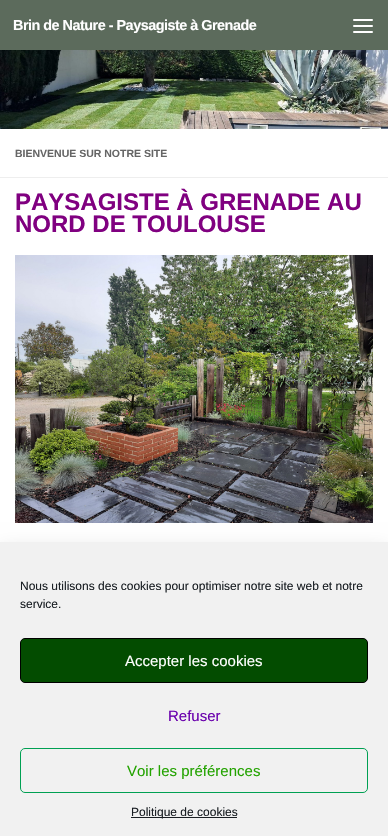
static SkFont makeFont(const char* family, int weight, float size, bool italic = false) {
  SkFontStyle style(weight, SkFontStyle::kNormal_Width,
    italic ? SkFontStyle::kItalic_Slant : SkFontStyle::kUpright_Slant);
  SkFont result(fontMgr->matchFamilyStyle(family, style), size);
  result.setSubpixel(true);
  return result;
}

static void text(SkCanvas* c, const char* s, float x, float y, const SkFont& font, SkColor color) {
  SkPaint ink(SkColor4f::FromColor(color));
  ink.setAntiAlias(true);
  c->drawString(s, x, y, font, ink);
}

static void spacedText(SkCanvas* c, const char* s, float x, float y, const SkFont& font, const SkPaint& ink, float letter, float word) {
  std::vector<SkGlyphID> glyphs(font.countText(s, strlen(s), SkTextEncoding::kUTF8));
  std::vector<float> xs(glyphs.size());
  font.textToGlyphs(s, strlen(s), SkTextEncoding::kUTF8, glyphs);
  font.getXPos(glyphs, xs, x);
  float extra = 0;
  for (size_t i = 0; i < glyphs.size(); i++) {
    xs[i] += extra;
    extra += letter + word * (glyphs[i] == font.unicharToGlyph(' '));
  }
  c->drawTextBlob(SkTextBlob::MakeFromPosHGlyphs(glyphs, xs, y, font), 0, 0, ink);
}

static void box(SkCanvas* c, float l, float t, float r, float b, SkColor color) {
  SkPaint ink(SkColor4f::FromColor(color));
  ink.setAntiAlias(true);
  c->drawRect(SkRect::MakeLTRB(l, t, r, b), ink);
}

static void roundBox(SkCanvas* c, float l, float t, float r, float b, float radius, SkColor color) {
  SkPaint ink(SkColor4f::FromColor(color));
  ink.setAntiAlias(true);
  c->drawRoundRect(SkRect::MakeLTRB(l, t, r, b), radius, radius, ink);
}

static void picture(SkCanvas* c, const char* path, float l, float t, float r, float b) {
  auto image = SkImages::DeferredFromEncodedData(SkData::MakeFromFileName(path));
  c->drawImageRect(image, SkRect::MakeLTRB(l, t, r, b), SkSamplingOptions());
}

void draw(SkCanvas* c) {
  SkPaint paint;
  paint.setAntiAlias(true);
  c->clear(0xffffffff);
  box(c, 0, 0, 388, 50, 0xff5c6b5c);
  SkFont face1 = makeFont("Liberation Sans", 700, 14.4f);
  paint.setColor(0xffffffff);
  spacedText(c, "Brin de Nature - Paysagiste à Grenade", 13, 30, face1, paint, -0.5f, 0);
  roundBox(c, 353, 19, 373, 21, 1, 0xffffffff);
  roundBox(c, 353, 25, 373, 27, 1, 0xffffffff);
  roundBox(c, 353, 31, 373, 33, 1, 0xffffffff);
  picture(c, "img_01.png", 0, 50, 388, 129);
  box(c, 0, 177, 388, 178, 0xffeeeeee);
  SkFont face2 = makeFont("Liberation Sans", 700, 10.5f);
  text(c, "BIENVENUE SUR NOTRE SITE", 15, 157, face2, 0xff666666);
  SkFont face3 = makeFont("Liberation Sans", 700, 24);
  text(c, "PAYSAGISTE À GRENADE AU", 15, 210, face3, 0xff800080);
  text(c, "NORD DE TOULOUSE", 15, 232, face3, 0xff800080);
  picture(c, "img_02.png", 15, 255, 373, 523);
  paint.setColor(0x30000000);
  paint.setMaskFilter(SkMaskFilter::MakeBlur(kNormal_SkBlurStyle, 10));
  c->drawRect(SkRect::MakeLTRB(0, 552, 388, 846), paint);
  paint.setMaskFilter(nullptr);
  box(c, 0, 542, 388, 836, 0xfff1f1f1);
  SkFont face4 = makeFont("Liberation Sans", 400, 12);
  text(c, "Nous utilisons des cookies pour optimiser notre site web et notre", 20, 590, face4, 0xff191e23);
  text(c, "service.", 20, 608, face4, 0xff191e23);
  paint.setColor(0xff034c00);
  c->drawRoundRect(SkRect::MakeLTRB(20.5f, 638.5f, 367.5f, 682.5f), 4.5f, 4.5f, paint);
  paint.setStyle(SkPaint::kStroke_Style);
  paint.setStrokeWidth(1);
  paint.setColor(0xff000000);
  c->drawRoundRect(SkRect::MakeLTRB(20.5f, 638.5f, 367.5f, 682.5f), 4.5f, 4.5f, paint);
  SkFont face5 = makeFont("Liberation Sans", 400, 15);
  text(c, "Accepter les cookies", 125, 666, face5, 0xffffffff);
  text(c, "Refuser", 168, 721, face5, 0xff6a00ad);
  paint.setColor(0xff00a053);
  c->drawRoundRect(SkRect::MakeLTRB(20.5f, 748.5f, 367.5f, 792.5f), 4.5f, 4.5f, paint);
  text(c, "Voir les préférences", 127, 776, face5, 0xff23a300);
  box(c, 131, 817, 237, 818, 0xff191e23);
  text(c, "Politique de cookies", 131, 816, face4, 0xff191e23);
}
